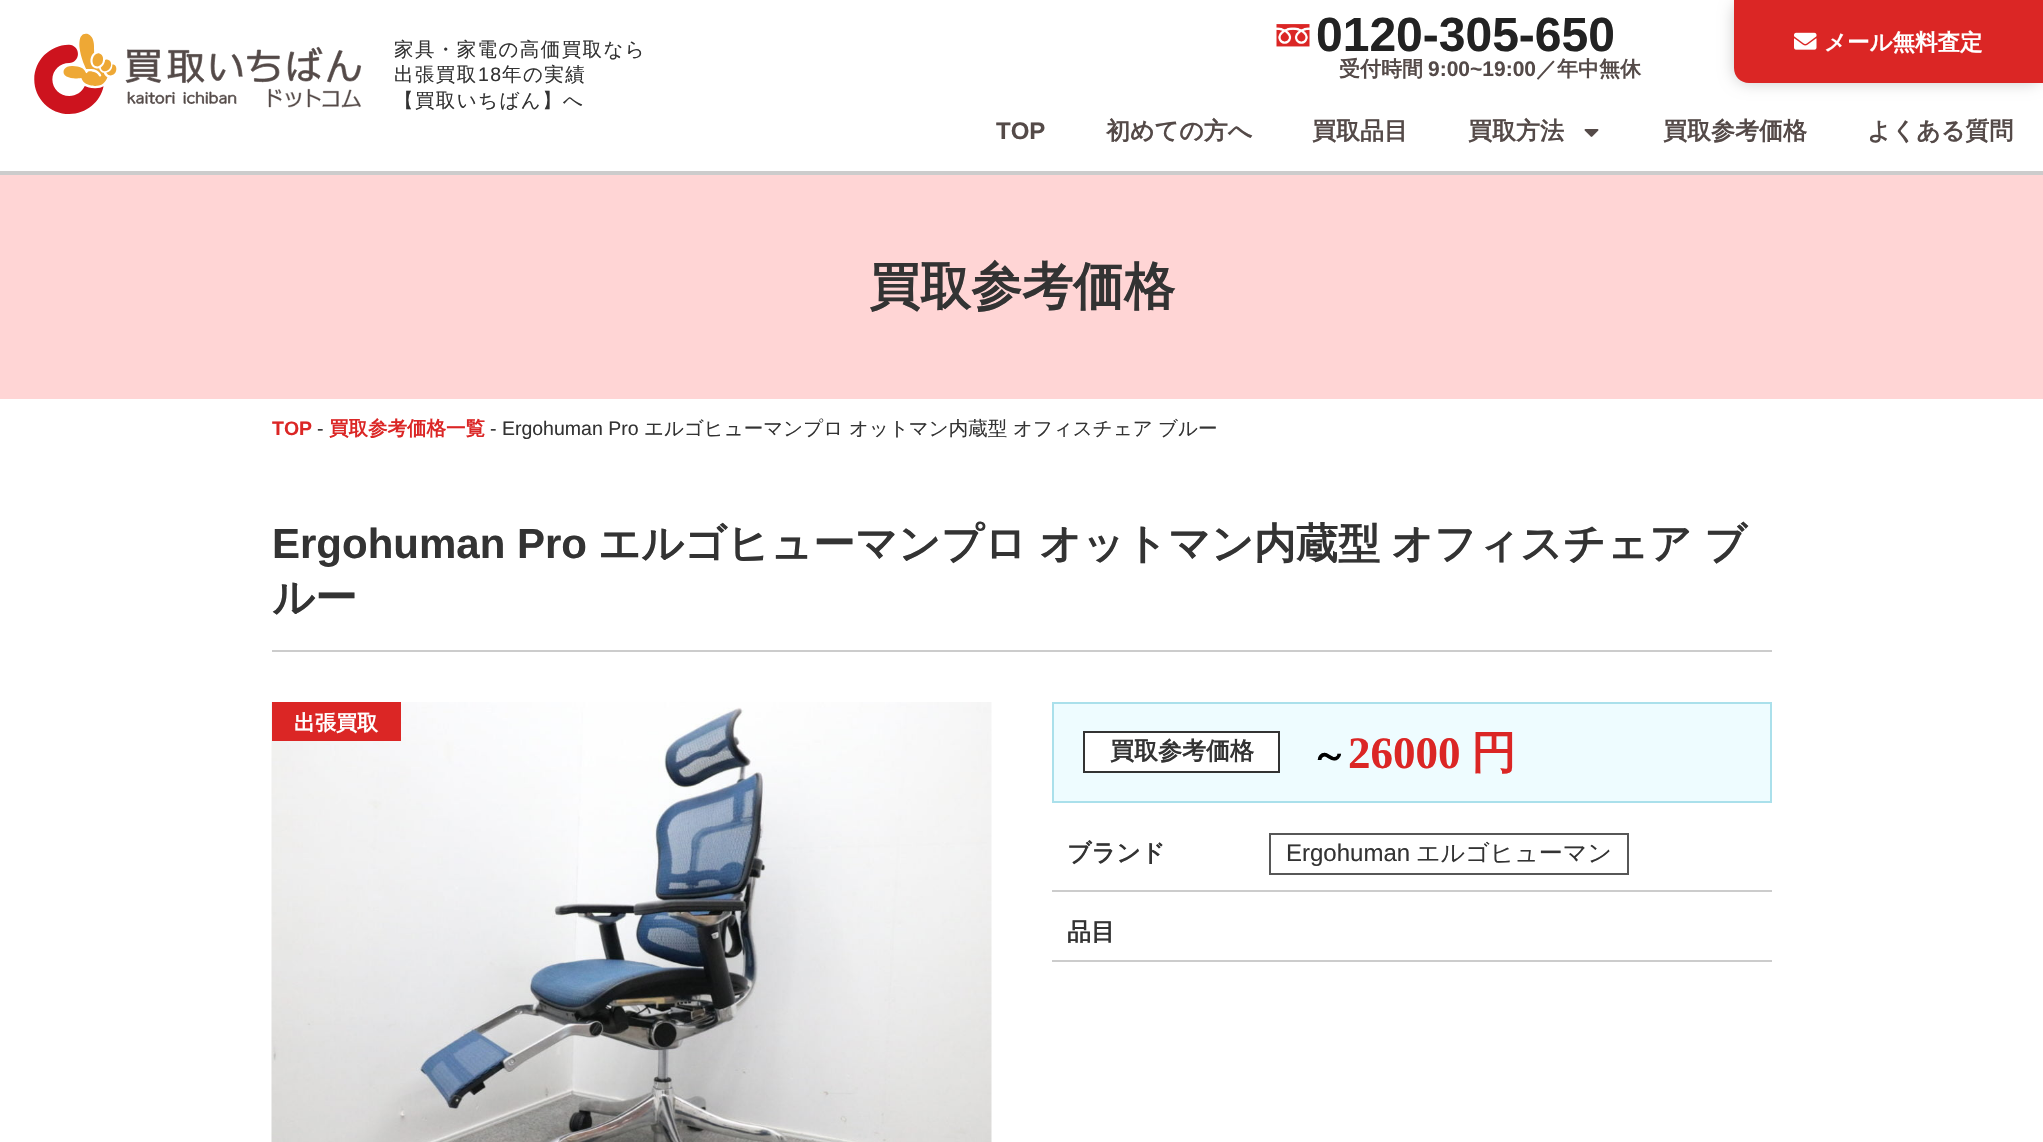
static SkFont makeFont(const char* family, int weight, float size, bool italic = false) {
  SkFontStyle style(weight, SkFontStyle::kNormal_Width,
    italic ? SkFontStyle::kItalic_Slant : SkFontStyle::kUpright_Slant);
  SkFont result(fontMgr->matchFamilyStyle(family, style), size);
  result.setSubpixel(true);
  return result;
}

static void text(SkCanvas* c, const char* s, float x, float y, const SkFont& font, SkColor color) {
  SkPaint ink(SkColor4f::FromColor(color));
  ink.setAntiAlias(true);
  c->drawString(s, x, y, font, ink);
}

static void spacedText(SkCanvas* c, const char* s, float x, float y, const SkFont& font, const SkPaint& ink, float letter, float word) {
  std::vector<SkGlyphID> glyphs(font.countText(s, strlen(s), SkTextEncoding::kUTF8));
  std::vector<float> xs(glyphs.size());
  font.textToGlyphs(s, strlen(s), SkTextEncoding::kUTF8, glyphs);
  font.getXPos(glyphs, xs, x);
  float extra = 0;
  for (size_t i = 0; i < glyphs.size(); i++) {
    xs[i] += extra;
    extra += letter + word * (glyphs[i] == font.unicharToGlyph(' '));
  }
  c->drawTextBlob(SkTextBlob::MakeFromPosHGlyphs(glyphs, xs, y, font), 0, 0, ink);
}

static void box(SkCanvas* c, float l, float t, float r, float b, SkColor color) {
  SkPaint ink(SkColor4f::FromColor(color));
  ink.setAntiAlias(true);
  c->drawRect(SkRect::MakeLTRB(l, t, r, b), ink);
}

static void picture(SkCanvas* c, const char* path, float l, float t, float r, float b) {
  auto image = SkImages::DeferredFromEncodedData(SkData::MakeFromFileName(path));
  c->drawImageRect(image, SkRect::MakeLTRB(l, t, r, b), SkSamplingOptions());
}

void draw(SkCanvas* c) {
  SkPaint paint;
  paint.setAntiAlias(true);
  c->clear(0xffffffff);
  box(c, 0, 171, 2043, 175, 0xffcccccc);
  picture(c, "img_01.png", 34, 33, 362, 114);
  SkFont face1 = makeFont("WenQuanYi Zen Hei", 500, 19.5f);
  paint.setColor(0xff333333);
  spacedText(c, "家具・家電の高価買取なら", 394, 56, face1, paint, 1.4f, 0);
  spacedText(c, "出張買取", 394, 81, face1, paint, 1.4f, 0);
  SkFont face2 = makeFont("Liberation Sans", 400, 19.5f);
  spacedText(c, "18", 478, 81, face2, paint, 1.4f, 0);
  spacedText(c, "年の実績", 502, 81, face1, paint, 1.4f, 0);
  spacedText(c, "【買取いちばん】へ", 394, 107, face1, paint, 1.4f, 0);
  picture(c, "img_02.png", 1276, 24, 1310, 47);
  SkFont face3 = makeFont("Liberation Sans", 700, 48);
  text(c, "0120-305-650", 1316, 51, face3, 0xff222222);
  SkFont face4 = makeFont("WenQuanYi Zen Hei", 700, 21);
  text(c, "受付時間", 1339, 76, face4, 0xff544a48);
  SkFont face5 = makeFont("Liberation Sans", 700, 21);
  text(c, "9:00~19:00", 1428, 76, face5, 0xff544a48);
  text(c, "／年中無休", 1536, 76, face4, 0xff544a48);
  paint.setColor(0x33000000);
  paint.setMaskFilter(SkMaskFilter::MakeBlur(kNormal_SkBlurStyle, 7.5f));
  c->drawRoundRect(SkRect::MakeLTRB(1734, 0, 2043, 83), 15, 15, paint);
  paint.setMaskFilter(nullptr);
  paint.setColor(0xffdb2625);
  c->drawPath(SkPathBuilder().moveTo(1734, 0).lineTo(2043, 0).lineTo(2043, 83).lineTo(1749, 83).cubicTo(1740.5f, 83, 1734, 76.5f, 1734, 68).close().detach(), paint);
  picture(c, "img_03.png", 1794, 32, 1817, 50);
  SkFont face6 = makeFont("WenQuanYi Zen Hei", 700, 22.5f);
  text(c, "メール無料査定", 1824, 50, face6, 0xffffffff);
  SkFont face7 = makeFont("Liberation Sans", 700, 24);
  text(c, "TOP", 996, 139, face7, 0xff544a48);
  SkFont face8 = makeFont("WenQuanYi Zen Hei", 700, 24);
  text(c, "初めての方へ", 1106, 139, face8, 0xff544a48);
  text(c, "買取品目", 1312, 139, face8, 0xff544a48);
  text(c, "買取方法", 1468, 139, face8, 0xff544a48);
  picture(c, "img_04.png", 1584, 129, 1599, 137);
  text(c, "買取参考価格", 1663, 139, face8, 0xff544a48);
  text(c, "よくある質問", 1867, 139, face8, 0xff544a48);
  box(c, 0, 175, 2043, 399, 0xffffd5d5);
  SkFont face9 = makeFont("WenQuanYi Zen Hei", 700, 51);
  text(c, "買取参考価格", 869, 304, face9, 0xff333333);
  SkFont face10 = makeFont("Liberation Sans", 700, 19.5f);
  text(c, "TOP", 272, 435, face10, 0xffdb2625);
  text(c, "-", 317, 435, face2, 0xff333333);
  SkFont face11 = makeFont("WenQuanYi Zen Hei", 700, 19.5f);
  text(c, "買取参考価格一覧", 329, 435, face11, 0xffdb2625);
  text(c, "- Ergohuman Pro", 490, 435, face2, 0xff333333);
  text(c, "エルゴヒューマンプロ", 644, 435, face1, 0xff333333);
  text(c, "オットマン内蔵型", 849, 435, face1, 0xff333333);
  text(c, "オフィスチェア", 1013, 435, face1, 0xff333333);
  text(c, "ブルー", 1158, 435, face1, 0xff333333);
  box(c, 272, 650, 1772, 652, 0xffcccccc);
  SkFont face12 = makeFont("Liberation Sans", 700, 42);
  text(c, "Ergohuman Pro", 272, 558, face12, 0xff333333);
  SkFont face13 = makeFont("WenQuanYi Zen Hei", 700, 42);
  text(c, "エルゴヒューマンプロ", 598, 558, face13, 0xff333333);
  text(c, "オットマン内蔵型", 1039, 558, face13, 0xff333333);
  text(c, "オフィスチェア", 1391, 558, face13, 0xff333333);
  text(c, "ブ", 1704, 558, face13, 0xff333333);
  text(c, "ルー", 272, 612, face13, 0xff333333);
  picture(c, "img_05.png", 271, 702, 992, 1142);
  box(c, 272, 702, 401, 741, 0xffdb2625);
  text(c, "出張買取", 294, 730, face4, 0xffffffff);
  paint.setColor(0xffeefcff);
  c->drawRect(SkRect::MakeLTRB(1053, 703, 1771, 802), paint);
  paint.setStyle(SkPaint::kStroke_Style);
  paint.setStrokeWidth(2);
  paint.setColor(0xffaae0eb);
  c->drawRect(SkRect::MakeLTRB(1053, 703, 1771, 802), paint);
  paint.setStyle(SkPaint::kFill_Style);
  paint.setColor(0xffffffff);
  c->drawRect(SkRect::MakeLTRB(1084, 732, 1279, 772), paint);
  paint.setStyle(SkPaint::kStroke_Style);
  paint.setColor(0xff333333);
  c->drawRect(SkRect::MakeLTRB(1084, 732, 1279, 772), paint);
  text(c, "買取参考価格", 1110, 759, face8, 0xff333333);
  SkFont face14 = makeFont("WenQuanYi Zen Hei", 700, 38);
  text(c, "～", 1310, 768, face14, 0xff000000);
  SkFont face15 = makeFont("Liberation Serif", 700, 45);
  text(c, "26000", 1348, 768, face15, 0xffdb2625);
  SkFont face16 = makeFont("WenQuanYi Zen Hei", 700, 45);
  text(c, "円", 1471, 768, face16, 0xffdb2625);
  box(c, 1052, 890, 1772, 892, 0xffcccccc);
  text(c, "ブランド", 1067, 861, face8, 0xff333333);
  paint.setColor(0xff575757);
  c->drawRect(SkRect::MakeLTRB(1270, 834, 1628, 874), paint);
  SkFont face17 = makeFont("Liberation Sans", 400, 24);
  text(c, "Ergohuman", 1286, 861, face17, 0xff333333);
  SkFont face18 = makeFont("WenQuanYi Zen Hei", 500, 24);
  text(c, "エルゴヒューマン", 1416, 861, face18, 0xff333333);
  box(c, 1052, 960, 1772, 962, 0xffcccccc);
  text(c, "品目", 1067, 940, face8, 0xff333333);
}
